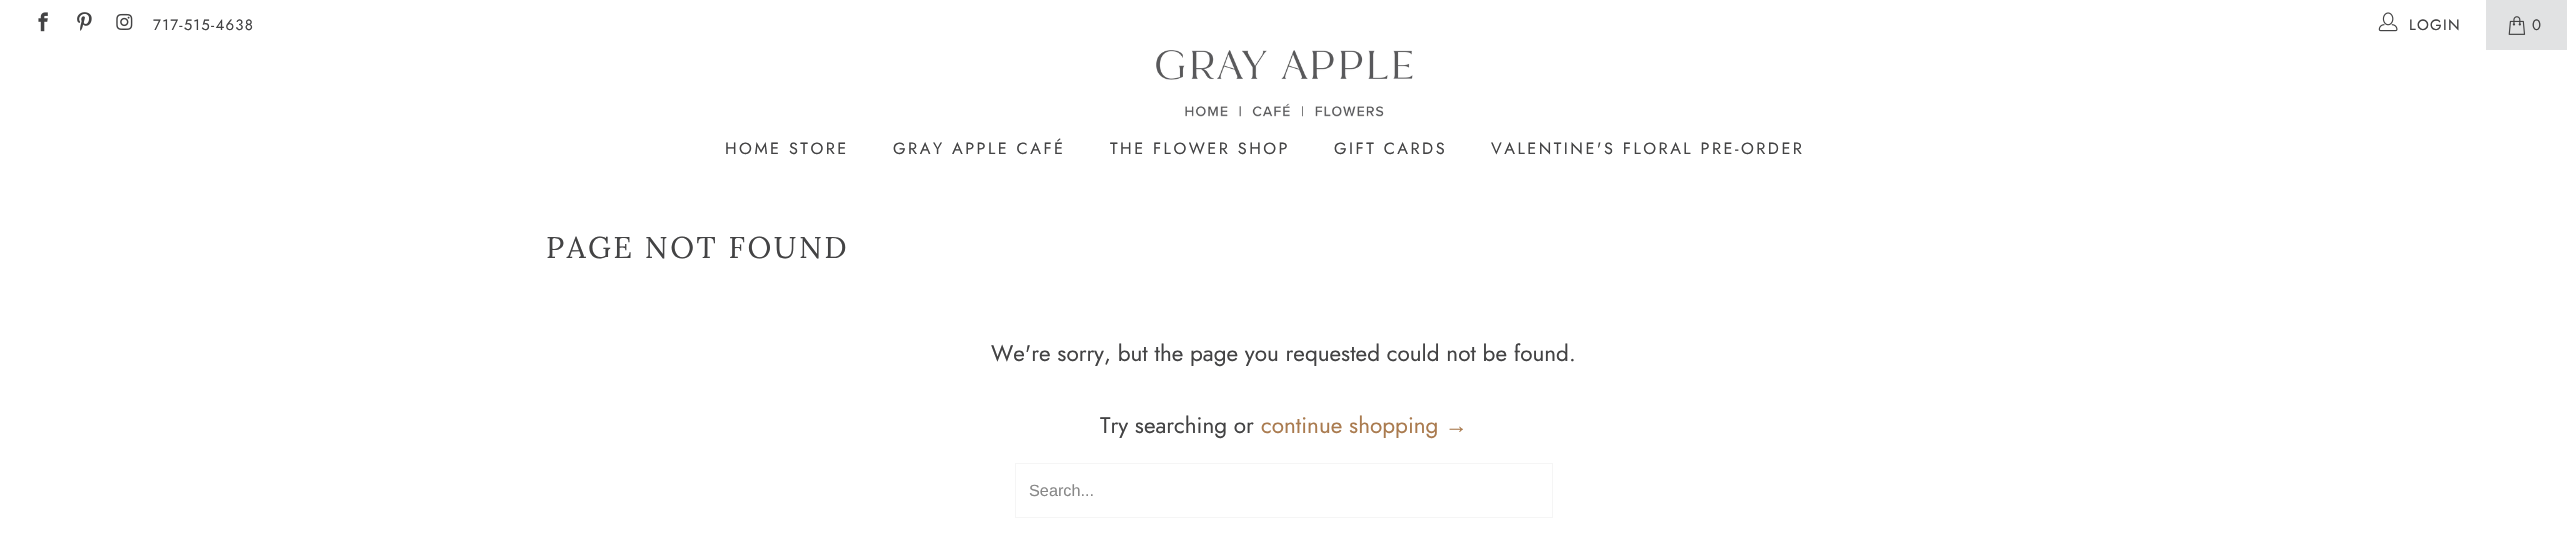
static SkFont makeFont(const char* family, int weight, float size, bool italic = false) {
  SkFontStyle style(weight, SkFontStyle::kNormal_Width,
    italic ? SkFontStyle::kItalic_Slant : SkFontStyle::kUpright_Slant);
  SkFont result(fontMgr->matchFamilyStyle(family, style), size);
  result.setSubpixel(true);
  return result;
}

static void text(SkCanvas* c, const char* s, float x, float y, const SkFont& font, SkColor color) {
  SkPaint ink(SkColor4f::FromColor(color));
  ink.setAntiAlias(true);
  c->drawString(s, x, y, font, ink);
}

static void spacedText(SkCanvas* c, const char* s, float x, float y, const SkFont& font, const SkPaint& ink, float letter, float word) {
  std::vector<SkGlyphID> glyphs(font.countText(s, strlen(s), SkTextEncoding::kUTF8));
  std::vector<float> xs(glyphs.size());
  font.textToGlyphs(s, strlen(s), SkTextEncoding::kUTF8, glyphs);
  font.getXPos(glyphs, xs, x);
  float extra = 0;
  for (size_t i = 0; i < glyphs.size(); i++) {
    xs[i] += extra;
    extra += letter + word * (glyphs[i] == font.unicharToGlyph(' '));
  }
  c->drawTextBlob(SkTextBlob::MakeFromPosHGlyphs(glyphs, xs, y, font), 0, 0, ink);
}

static void box(SkCanvas* c, float l, float t, float r, float b, SkColor color) {
  SkPaint ink(SkColor4f::FromColor(color));
  ink.setAntiAlias(true);
  c->drawRect(SkRect::MakeLTRB(l, t, r, b), ink);
}

static void picture(SkCanvas* c, const char* path, float l, float t, float r, float b) {
  auto image = SkImages::DeferredFromEncodedData(SkData::MakeFromFileName(path));
  c->drawImageRect(image, SkRect::MakeLTRB(l, t, r, b), SkSamplingOptions());
}

void draw(SkCanvas* c) {
  SkPaint paint;
  paint.setAntiAlias(true);
  c->clear(0xffffffff);
  picture(c, "img_01.png", 38, 12, 48, 32);
  picture(c, "img_02.png", 77, 12, 92, 31);
  picture(c, "img_03.png", 116, 13, 133, 30);
  SkFont face1 = makeFont("Jost", 400, 15);
  paint.setColor(0xff434344);
  spacedText(c, "717-515-4638", 153, 30, face1, paint, 1.25f, 0);
  picture(c, "img_04.png", 2378, 12, 2398, 32);
  spacedText(c, "LOGIN", 2409, 30, face1, paint, 1.25f, 0);
  box(c, 2486, 0, 2567, 50, 0xffe1e2e3);
  picture(c, "img_05.png", 2508, 16, 2526, 35);
  spacedText(c, "0", 2532, 30, face1, paint, 1.25f, 0);
  picture(c, "img_06.png", 1156, 50, 1413, 117);
  SkFont face2 = makeFont("Jost", 400, 16.25f);
  spacedText(c, "HOME STORE", 725, 154, face2, paint, 2.5f, 0);
  spacedText(c, "GRAY APPLE CAFÉ", 893, 154, face2, paint, 2.5f, 0);
  spacedText(c, "THE FLOWER SHOP", 1110, 154, face2, paint, 2.5f, 0);
  spacedText(c, "GIFT CARDS", 1334, 154, face2, paint, 2.5f, 0);
  spacedText(c, "VALENTINE'S FLORAL PRE-ORDER", 1491, 154, face2, paint, 2.5f, 0);
  SkFont face3 = makeFont("Lora", 400, 30);
  spacedText(c, "PAGE NOT FOUND", 546, 258, face3, paint, 2.5f, 0);
  SkFont face4 = makeFont("Jost", 400, 22.5f);
  text(c, "We're sorry, but the page you requested could not be found.", 991, 361, face4, 0xff434344);
  text(c, "Try searching or", 1100, 433, face4, 0xff434344);
  text(c, "continue shopping", 1261, 433, face4, 0xffaa7b4f);
  SkFont face5 = makeFont("Liberation Sans", 400, 22.5f);
  text(c, "→", 1445, 433, face5, 0xffaa7b4f);
  paint.setStyle(SkPaint::kStroke_Style);
  paint.setStrokeWidth(1);
  paint.setColor(0xfff5f5f5);
  c->drawRect(SkRect::MakeLTRB(1015.5f, 463.5f, 1552.5f, 517.5f), paint);
  SkFont face6 = makeFont("Liberation Sans", 400, 16.25f);
  text(c, "Search...", 1029, 496, face6, 0xff888888);
}
